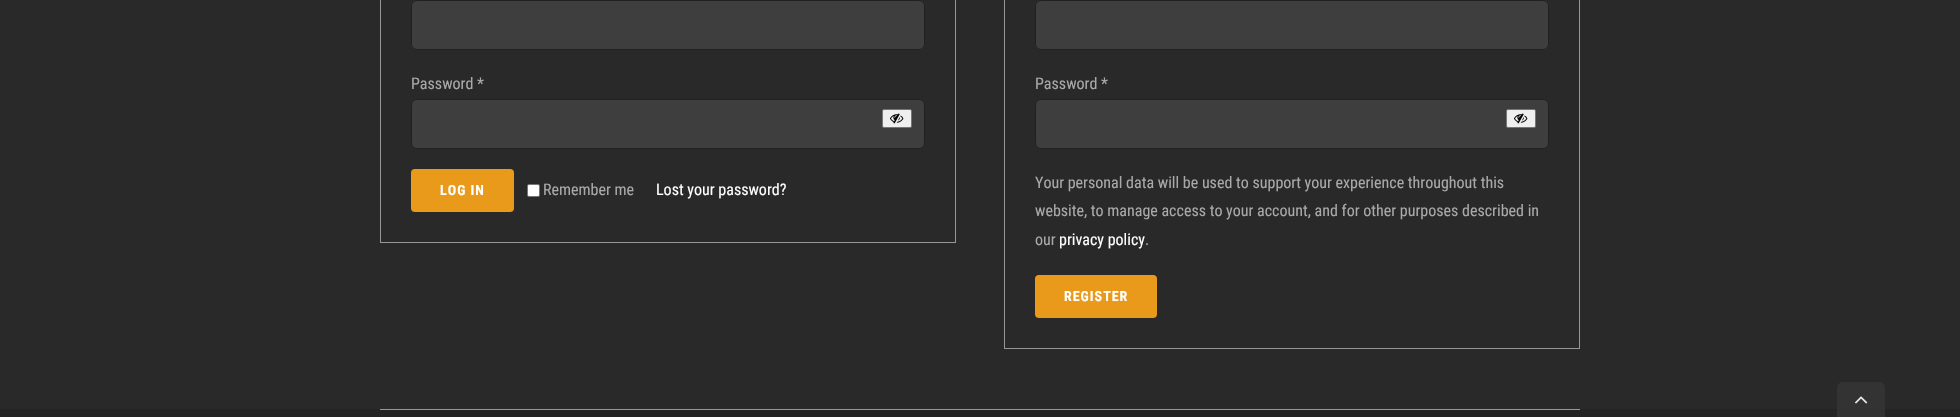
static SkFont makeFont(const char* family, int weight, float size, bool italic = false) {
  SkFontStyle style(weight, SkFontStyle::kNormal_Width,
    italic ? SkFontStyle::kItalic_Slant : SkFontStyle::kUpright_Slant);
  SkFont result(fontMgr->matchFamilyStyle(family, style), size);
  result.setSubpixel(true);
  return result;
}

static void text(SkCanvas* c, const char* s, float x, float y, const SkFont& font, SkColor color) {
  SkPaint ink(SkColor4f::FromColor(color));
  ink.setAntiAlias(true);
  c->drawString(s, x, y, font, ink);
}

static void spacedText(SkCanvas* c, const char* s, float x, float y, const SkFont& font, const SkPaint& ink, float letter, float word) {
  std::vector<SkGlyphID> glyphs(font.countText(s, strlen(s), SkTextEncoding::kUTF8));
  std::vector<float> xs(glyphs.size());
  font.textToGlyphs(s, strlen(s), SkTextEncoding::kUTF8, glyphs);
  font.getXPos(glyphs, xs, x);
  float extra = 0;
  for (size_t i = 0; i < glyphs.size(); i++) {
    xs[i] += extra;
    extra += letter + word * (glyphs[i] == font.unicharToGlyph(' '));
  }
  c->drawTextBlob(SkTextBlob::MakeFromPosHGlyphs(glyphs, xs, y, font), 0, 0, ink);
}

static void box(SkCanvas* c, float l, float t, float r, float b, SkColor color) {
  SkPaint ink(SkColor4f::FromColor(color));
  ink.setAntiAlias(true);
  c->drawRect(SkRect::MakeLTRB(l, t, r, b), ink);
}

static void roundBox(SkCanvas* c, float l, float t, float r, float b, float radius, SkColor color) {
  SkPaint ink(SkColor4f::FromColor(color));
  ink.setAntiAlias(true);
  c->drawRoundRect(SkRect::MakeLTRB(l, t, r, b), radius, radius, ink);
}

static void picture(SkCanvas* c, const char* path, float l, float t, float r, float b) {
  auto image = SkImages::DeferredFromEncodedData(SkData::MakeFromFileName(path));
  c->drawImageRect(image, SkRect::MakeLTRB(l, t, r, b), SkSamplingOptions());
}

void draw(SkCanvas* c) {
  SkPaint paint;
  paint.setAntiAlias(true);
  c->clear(0xff29292a);
  paint.setStyle(SkPaint::kStroke_Style);
  paint.setStrokeWidth(1);
  paint.setColor(0xff979797);
  c->drawRect(SkRect::MakeLTRB(380.5f, -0.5f, 955.5f, 242.5f), paint);
  paint.setStyle(SkPaint::kFill_Style);
  paint.setColor(0xff3e3e3e);
  c->drawRoundRect(SkRect::MakeLTRB(411.5f, 0.5f, 924.5f, 49.5f), 5.5f, 5.5f, paint);
  paint.setStyle(SkPaint::kStroke_Style);
  paint.setColor(0xff212122);
  c->drawRoundRect(SkRect::MakeLTRB(411.5f, 0.5f, 924.5f, 49.5f), 5.5f, 5.5f, paint);
  SkFont face1 = makeFont("Roboto Condensed", 400, 16);
  text(c, "Password *", 411, 89, face1, 0xffaaa9a9);
  paint.setStyle(SkPaint::kFill_Style);
  paint.setColor(0xff3e3e3e);
  c->drawRoundRect(SkRect::MakeLTRB(411.5f, 99.5f, 924.5f, 148.5f), 5.5f, 5.5f, paint);
  paint.setStyle(SkPaint::kStroke_Style);
  paint.setColor(0xff212122);
  c->drawRoundRect(SkRect::MakeLTRB(411.5f, 99.5f, 924.5f, 148.5f), 5.5f, 5.5f, paint);
  paint.setStyle(SkPaint::kFill_Style);
  paint.setColor(0xffefefef);
  c->drawRoundRect(SkRect::MakeLTRB(882.5f, 109.5f, 911.5f, 127.5f), 1.5f, 1.5f, paint);
  paint.setStyle(SkPaint::kStroke_Style);
  paint.setColor(0xff767676);
  c->drawRoundRect(SkRect::MakeLTRB(882.5f, 109.5f, 911.5f, 127.5f), 1.5f, 1.5f, paint);
  picture(c, "img_01.png", 890, 113, 904, 124);
  roundBox(c, 411, 169, 514, 212, 4, 0xffea9a1a);
  SkFont face2 = makeFont("Roboto Condensed", 700, 14);
  paint.setStyle(SkPaint::kFill_Style);
  paint.setColor(0xffffffff);
  spacedText(c, "LOG IN", 440, 195, face2, paint, 1, 0);
  c->drawRoundRect(SkRect::MakeLTRB(527.5f, 184.5f, 539.5f, 196.5f), 1.5f, 1.5f, paint);
  paint.setStyle(SkPaint::kStroke_Style);
  paint.setColor(0xff767676);
  c->drawRoundRect(SkRect::MakeLTRB(527.5f, 184.5f, 539.5f, 196.5f), 1.5f, 1.5f, paint);
  text(c, "Remember me", 543, 195, face1, 0xffaaa9a9);
  text(c, "Lost your password?", 656, 195, face1, 0xffffffff);
  paint.setColor(0xff979797);
  c->drawRect(SkRect::MakeLTRB(1004.5f, -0.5f, 1579.5f, 348.5f), paint);
  paint.setStyle(SkPaint::kFill_Style);
  paint.setColor(0xff3e3e3e);
  c->drawRoundRect(SkRect::MakeLTRB(1035.5f, 0.5f, 1548.5f, 49.5f), 5.5f, 5.5f, paint);
  paint.setStyle(SkPaint::kStroke_Style);
  paint.setColor(0xff212122);
  c->drawRoundRect(SkRect::MakeLTRB(1035.5f, 0.5f, 1548.5f, 49.5f), 5.5f, 5.5f, paint);
  text(c, "Password *", 1035, 89, face1, 0xffaaa9a9);
  paint.setStyle(SkPaint::kFill_Style);
  paint.setColor(0xff3e3e3e);
  c->drawRoundRect(SkRect::MakeLTRB(1035.5f, 99.5f, 1548.5f, 148.5f), 5.5f, 5.5f, paint);
  paint.setStyle(SkPaint::kStroke_Style);
  paint.setColor(0xff212122);
  c->drawRoundRect(SkRect::MakeLTRB(1035.5f, 99.5f, 1548.5f, 148.5f), 5.5f, 5.5f, paint);
  paint.setStyle(SkPaint::kFill_Style);
  paint.setColor(0xffefefef);
  c->drawRoundRect(SkRect::MakeLTRB(1506.5f, 109.5f, 1535.5f, 127.5f), 1.5f, 1.5f, paint);
  paint.setStyle(SkPaint::kStroke_Style);
  paint.setColor(0xff767676);
  c->drawRoundRect(SkRect::MakeLTRB(1506.5f, 109.5f, 1535.5f, 127.5f), 1.5f, 1.5f, paint);
  picture(c, "img_01.png", 1514, 113, 1528, 124);
  text(c, "Your personal data will be used to support your experience throughout this", 1035, 188, face1, 0xffaaa9a9);
  text(c, "website, to manage access to your account, and for other purposes described in", 1035, 216, face1, 0xffaaa9a9);
  text(c, "our", 1035, 245, face1, 0xffaaa9a9);
  text(c, "privacy policy", 1059, 245, face1, 0xffffffff);
  text(c, ".", 1145, 245, face1, 0xffaaa9a9);
  roundBox(c, 1035, 275, 1157, 318, 4, 0xffea9a1a);
  paint.setStyle(SkPaint::kFill_Style);
  paint.setColor(0xffffffff);
  spacedText(c, "REGISTER", 1064, 301, face2, paint, 1, 0);
  box(c, 0, 409, 1960, 417, 0xff242424);
  box(c, 380, 409, 1580, 410, 0xff979797);
  paint.setColor(0xe6333333);
  c->drawPath(SkPathBuilder().moveTo(1843, 382).lineTo(1879, 382).cubicTo(1882.5f, 382, 1885, 384.5f, 1885, 388).lineTo(1885, 417).lineTo(1837, 417).lineTo(1837, 388).cubicTo(1837, 384.5f, 1839.5f, 382, 1843, 382).close().detach(), paint);
  picture(c, "img_02.png", 1855, 396, 1868, 404);
}
